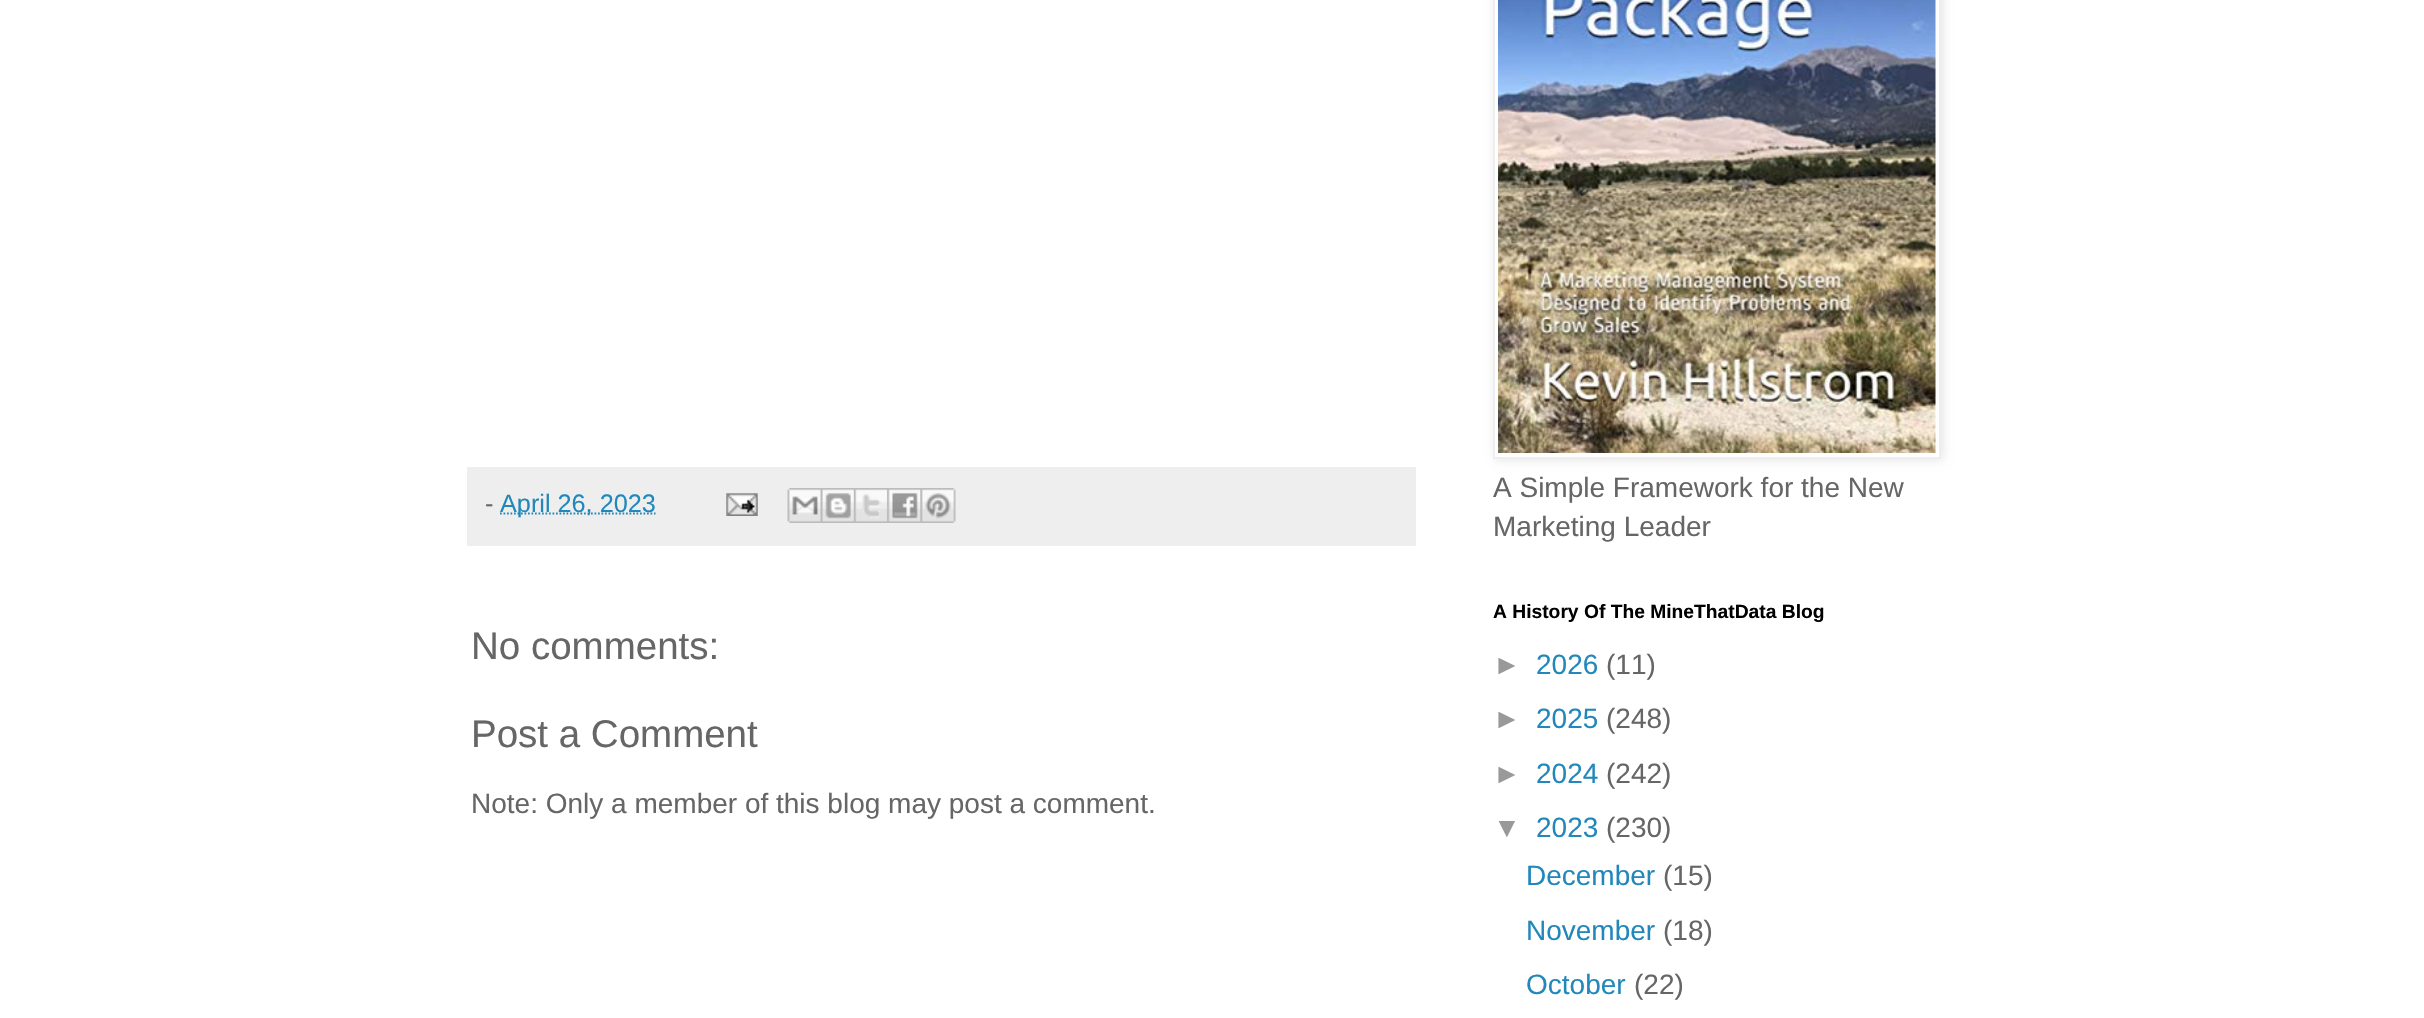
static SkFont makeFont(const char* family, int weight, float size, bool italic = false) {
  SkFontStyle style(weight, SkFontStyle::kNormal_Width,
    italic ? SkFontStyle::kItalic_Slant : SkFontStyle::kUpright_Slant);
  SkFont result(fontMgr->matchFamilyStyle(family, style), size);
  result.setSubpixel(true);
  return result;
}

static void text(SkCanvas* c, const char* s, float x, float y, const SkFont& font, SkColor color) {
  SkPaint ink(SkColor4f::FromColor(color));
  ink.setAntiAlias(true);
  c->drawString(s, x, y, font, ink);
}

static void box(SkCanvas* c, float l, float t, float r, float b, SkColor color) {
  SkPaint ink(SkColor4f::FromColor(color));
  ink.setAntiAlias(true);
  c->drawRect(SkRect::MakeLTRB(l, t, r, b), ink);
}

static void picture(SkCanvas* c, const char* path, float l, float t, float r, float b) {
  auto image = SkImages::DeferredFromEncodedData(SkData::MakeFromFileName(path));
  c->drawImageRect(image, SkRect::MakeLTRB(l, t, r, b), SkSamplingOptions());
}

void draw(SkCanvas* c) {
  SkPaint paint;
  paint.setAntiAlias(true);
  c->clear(0xffffffff);
  box(c, 467, 467, 1416, 546, 0xffeeeeee);
  SkFont face1 = makeFont("Liberation Sans", 400, 25.25f);
  text(c, "-", 485, 512, face1, 0xff666666);
  paint.setStyle(SkPaint::kStroke_Style);
  paint.setStrokeWidth(1.8f);
  paint.setColor(0xff2288bb);
  paint.setPathEffect(SkDashPathEffect::Make({{1.75f, 1.75f}}, 0));
  c->drawPath(SkPathBuilder().moveTo(500, 513.5f).lineTo(655.5f, 513.5f).detach(), paint);
  paint.setPathEffect(nullptr);
  text(c, "April 26, 2023", 500, 512, face1, 0xff2288bb);
  picture(c, "img_01.png", 726, 493, 758, 516);
  picture(c, "img_02.png", 787, 488, 821, 523);
  picture(c, "img_03.png", 820, 488, 854, 523);
  picture(c, "img_04.png", 854, 488, 888, 523);
  picture(c, "img_05.png", 887, 488, 921, 523);
  picture(c, "img_06.png", 920, 488, 956, 523);
  SkFont face2 = makeFont("Liberation Sans", 400, 38.5f);
  text(c, "No comments:", 471, 659, face2, 0xff666666);
  text(c, "Post a Comment", 471, 747, face2, 0xff666666);
  SkFont face3 = makeFont("Liberation Sans", 400, 28);
  text(c, "Note: Only a member of this blog may post a comment.", 471, 813, face3, 0xff666666);
  paint.setStyle(SkPaint::kFill_Style);
  paint.setColor(0x1a000000);
  paint.setMaskFilter(SkMaskFilter::MakeBlur(kNormal_SkBlurStyle, 4.5f));
  c->drawRect(SkRect::MakeLTRB(1495, -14, 1943, 460), paint);
  paint.setMaskFilter(nullptr);
  paint.setColor(0xffffffff);
  c->drawRect(SkRect::MakeLTRB(1494, -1, 1940, 458), paint);
  paint.setStyle(SkPaint::kStroke_Style);
  paint.setStrokeWidth(2);
  paint.setColor(0xffeeeeee);
  c->drawRect(SkRect::MakeLTRB(1494, -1, 1940, 458), paint);
  picture(c, "img_07.png", 1498, 0, 1936, 453);
  text(c, "A Simple Framework for the New", 1493, 497, face3, 0xff666666);
  text(c, "Marketing Leader", 1493, 536, face3, 0xff666666);
  SkFont face4 = makeFont("Liberation Sans", 700, 19.25f);
  text(c, "A History Of The MineThatData Blog", 1493, 618, face4, 0xff000000);
  text(c, "►", 1493, 674, face3, 0xff999999);
  text(c, "2026", 1536, 674, face3, 0xff2288bb);
  text(c, "(11)", 1606, 674, face3, 0xff666666);
  text(c, "►", 1493, 728, face3, 0xff999999);
  text(c, "2025", 1536, 728, face3, 0xff2288bb);
  text(c, "(248)", 1606, 728, face3, 0xff666666);
  text(c, "►", 1493, 783, face3, 0xff999999);
  text(c, "2024", 1536, 783, face3, 0xff2288bb);
  text(c, "(242)", 1606, 783, face3, 0xff666666);
  text(c, "▼", 1493, 837, face3, 0xff999999);
  text(c, "2023", 1536, 837, face3, 0xff2288bb);
  text(c, "(230)", 1606, 837, face3, 0xff666666);
  text(c, "December", 1526, 885, face3, 0xff2288bb);
  text(c, "(15)", 1663, 885, face3, 0xff666666);
  text(c, "November", 1526, 940, face3, 0xff2288bb);
  text(c, "(18)", 1663, 940, face3, 0xff666666);
  text(c, "October", 1526, 994, face3, 0xff2288bb);
  text(c, "(22)", 1634, 994, face3, 0xff666666);
}
